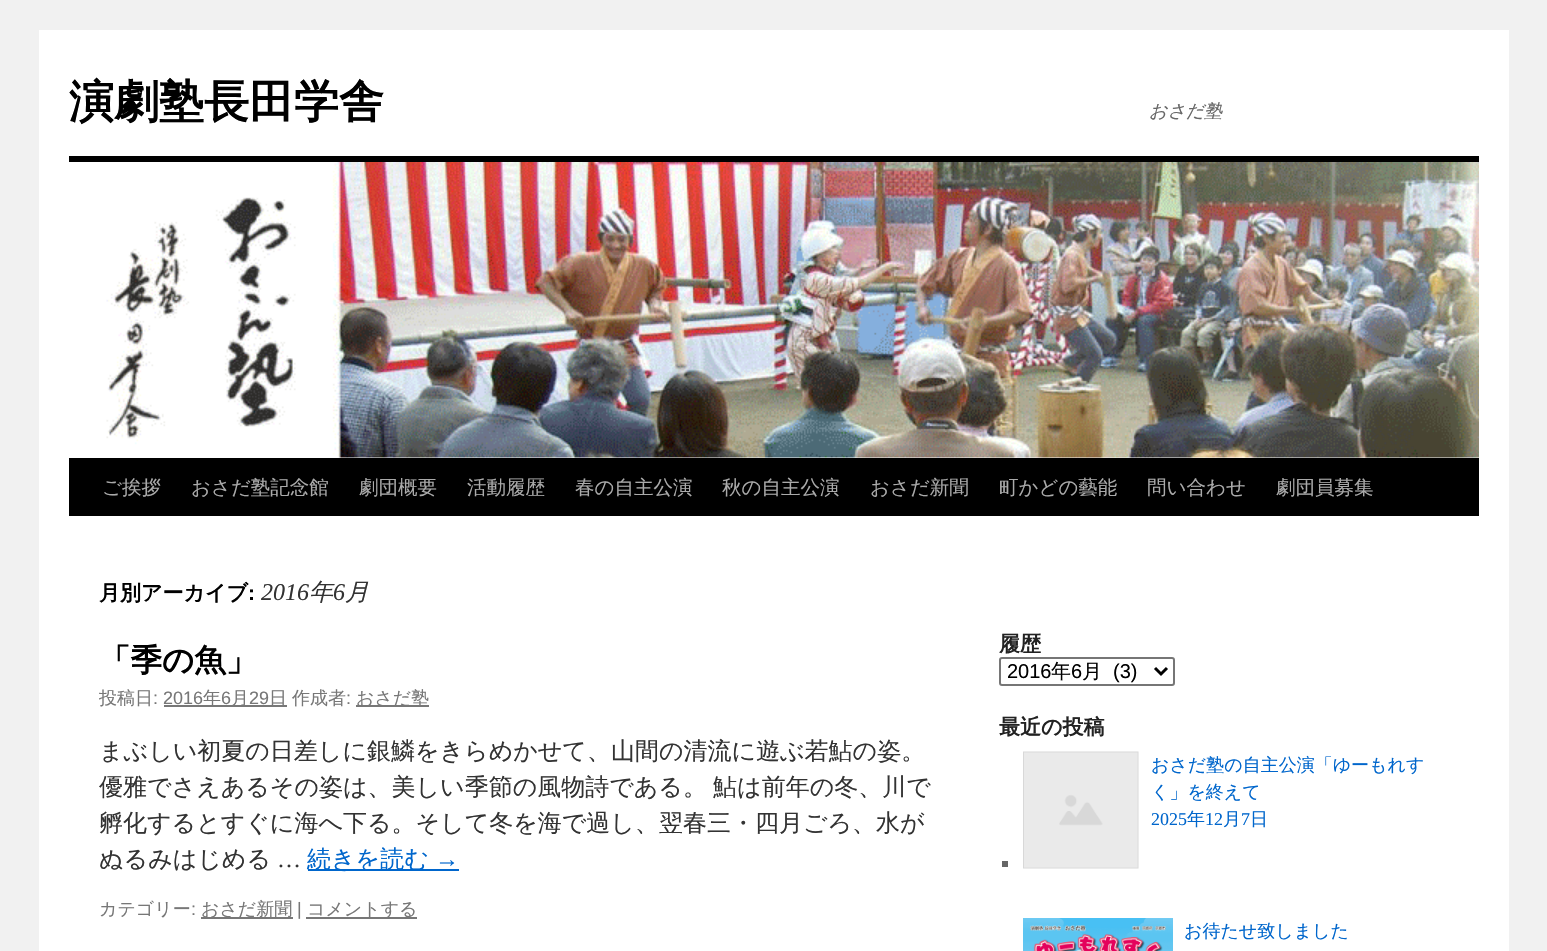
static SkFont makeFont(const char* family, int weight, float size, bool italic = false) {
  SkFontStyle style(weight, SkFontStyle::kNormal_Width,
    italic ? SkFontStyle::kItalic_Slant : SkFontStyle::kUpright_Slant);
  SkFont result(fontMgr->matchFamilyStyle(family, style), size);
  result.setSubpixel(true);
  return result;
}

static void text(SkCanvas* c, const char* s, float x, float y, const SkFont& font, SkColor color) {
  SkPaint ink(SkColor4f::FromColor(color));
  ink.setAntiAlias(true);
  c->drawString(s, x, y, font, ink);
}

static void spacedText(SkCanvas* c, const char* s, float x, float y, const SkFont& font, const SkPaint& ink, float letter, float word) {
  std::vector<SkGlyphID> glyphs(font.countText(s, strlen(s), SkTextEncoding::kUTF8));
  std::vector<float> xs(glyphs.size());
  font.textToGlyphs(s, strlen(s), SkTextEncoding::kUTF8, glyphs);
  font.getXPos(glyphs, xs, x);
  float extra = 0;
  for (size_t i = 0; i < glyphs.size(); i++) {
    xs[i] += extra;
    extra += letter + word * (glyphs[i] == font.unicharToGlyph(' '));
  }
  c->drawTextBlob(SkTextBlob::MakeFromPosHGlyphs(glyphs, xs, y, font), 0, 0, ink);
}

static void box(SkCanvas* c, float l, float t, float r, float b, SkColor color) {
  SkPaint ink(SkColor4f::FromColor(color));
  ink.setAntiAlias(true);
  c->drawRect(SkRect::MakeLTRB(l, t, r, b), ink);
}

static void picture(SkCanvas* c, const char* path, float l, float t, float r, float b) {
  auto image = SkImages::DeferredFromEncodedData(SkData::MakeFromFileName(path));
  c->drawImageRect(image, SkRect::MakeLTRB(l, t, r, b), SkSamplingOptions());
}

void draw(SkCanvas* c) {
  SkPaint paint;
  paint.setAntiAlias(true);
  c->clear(0xfff1f1f1);
  box(c, 39, 30, 1509, 951, 0xffffffff);
  SkFont face1 = makeFont("WenQuanYi Zen Hei", 700, 45);
  text(c, "演劇塾長田学舎", 69, 117, face1, 0xff000000);
  SkFont face2 = makeFont("WenQuanYi Zen Hei", 500, 18, true);
  text(c, "おさだ塾", 1149, 117, face2, 0xff666666);
  box(c, 69, 156, 1479, 162, 0xff000000);
  box(c, 69, 458, 1479, 516, 0xff000000);
  picture(c, "img_01.png", 106, 162, 1479, 458);
  SkFont face3 = makeFont("WenQuanYi Zen Hei", 500, 19.5f);
  text(c, "ご挨拶", 102, 494, face3, 0xffaaaaaa);
  text(c, "おさだ塾記念館", 191, 494, face3, 0xffaaaaaa);
  text(c, "劇団概要", 359, 494, face3, 0xffaaaaaa);
  text(c, "活動履歴", 467, 494, face3, 0xffaaaaaa);
  text(c, "春の自主公演", 575, 494, face3, 0xffaaaaaa);
  text(c, "秋の自主公演", 722, 494, face3, 0xffaaaaaa);
  text(c, "おさだ新聞", 870, 494, face3, 0xffaaaaaa);
  text(c, "町かどの藝能", 999, 494, face3, 0xffaaaaaa);
  text(c, "問い合わせ", 1147, 494, face3, 0xffaaaaaa);
  text(c, "劇団員募集", 1276, 494, face3, 0xffaaaaaa);
  SkFont face4 = makeFont("WenQuanYi Zen Hei", 700, 21);
  text(c, "月別アーカイブ", 99, 600, face4, 0xff000000);
  SkFont face5 = makeFont("Liberation Sans", 700, 21);
  text(c, ":", 248, 600, face5, 0xff000000);
  SkFont face6 = makeFont("Liberation Serif", 400, 24, true);
  text(c, "2016", 261, 600, face6, 0xff333333);
  SkFont face7 = makeFont("WenQuanYi Zen Hei", 500, 24, true);
  text(c, "年", 309, 600, face7, 0xff333333);
  text(c, "6", 333, 600, face6, 0xff333333);
  text(c, "月", 345, 600, face7, 0xff333333);
  SkFont face8 = makeFont("WenQuanYi Zen Hei", 700, 31.5f);
  text(c, "「季の魚」", 99, 671, face8, 0xff000000);
  SkFont face9 = makeFont("WenQuanYi Zen Hei", 500, 18);
  text(c, "投稿日", 99, 704, face9, 0xff777777);
  SkFont face10 = makeFont("Liberation Sans", 400, 18);
  text(c, ": 2016", 153, 704, face10, 0xff777777);
  box(c, 164, 705, 287, 707, 0xff777777);
  text(c, "年", 203, 704, face9, 0xff777777);
  text(c, "6", 221, 704, face10, 0xff777777);
  text(c, "月", 231, 704, face9, 0xff777777);
  text(c, "29", 249, 704, face10, 0xff777777);
  text(c, "日", 269, 704, face9, 0xff777777);
  text(c, "作成者", 292, 704, face9, 0xff777777);
  text(c, ":", 346, 704, face10, 0xff777777);
  box(c, 356, 705, 429, 707, 0xff777777);
  text(c, "おさだ塾", 356, 704, face9, 0xff777777);
  SkFont face11 = makeFont("WenQuanYi Zen Hei", 500, 24);
  text(c, "まぶしい初夏の日差しに銀鱗をきらめかせて、山間の清流に遊ぶ若鮎の姿。", 99, 759, face11, 0xff333333);
  paint.setColor(0xff333333);
  spacedText(c, "優雅でさえあるその姿は、美しい季節の風物詩である。 鮎は前年の冬、川で", 99, 795, face11, paint, 0, -1);
  text(c, "孵化するとすぐに海へ下る。そして冬を海で過し、翌春三・四月ごろ、水が", 99, 831, face11, 0xff333333);
  text(c, "ぬるみはじめる", 99, 867, face11, 0xff333333);
  SkFont face12 = makeFont("Liberation Serif", 400, 24);
  text(c, "…", 277, 867, face12, 0xff333333);
  box(c, 308, 869, 459, 871, 0xff0066cc);
  text(c, "続きを読む", 307, 867, face11, 0xff0066cc);
  text(c, "→", 435, 867, face12, 0xff0066cc);
  text(c, "カテゴリー", 99, 915, face9, 0xff777777);
  text(c, ":", 191, 915, face10, 0xff777777);
  box(c, 201, 917, 293, 919, 0xff777777);
  text(c, "おさだ新聞", 201, 915, face9, 0xff777777);
  text(c, "|", 297, 915, face10, 0xff777777);
  box(c, 306, 917, 417, 919, 0xff777777);
  text(c, "コメントする", 307, 915, face9, 0xff777777);
  text(c, "履歴", 999, 651, face4, 0xff222222);
  paint.setStyle(SkPaint::kStroke_Style);
  paint.setStrokeWidth(2);
  paint.setColor(0xff767676);
  c->drawRoundRect(SkRect::MakeLTRB(1000, 658, 1174, 685), 2, 2, paint);
  paint.setStrokeWidth(3);
  paint.setColor(0xff000000);
  c->drawPath(SkPathBuilder().moveTo(1155, 668).lineTo(1161, 674).lineTo(1167, 668).detach(), paint);
  SkFont face13 = makeFont("Liberation Sans", 400, 20);
  text(c, "2016", 1007, 678, face13, 0xff000000);
  SkFont face14 = makeFont("WenQuanYi Zen Hei", 500, 20);
  text(c, "年", 1051, 678, face14, 0xff000000);
  text(c, "6", 1071, 678, face13, 0xff000000);
  text(c, "月", 1082, 678, face14, 0xff000000);
  text(c, "(3)", 1113, 678, face13, 0xff000000);
  text(c, "最近の投稿", 999, 734, face4, 0xff222222);
  picture(c, "img_02.png", 1023, 751, 1139, 869);
  text(c, "おさだ塾の自主公演「ゆーもれす", 1151, 771, face9, 0xff0066cc);
  text(c, "く」を終えて", 1151, 798, face9, 0xff0066cc);
  SkFont face15 = makeFont("Liberation Serif", 400, 18);
  text(c, "2025", 1151, 825, face15, 0xff0066cc);
  text(c, "年", 1187, 825, face9, 0xff0066cc);
  text(c, "12", 1205, 825, face15, 0xff0066cc);
  text(c, "月", 1223, 825, face9, 0xff0066cc);
  text(c, "7", 1241, 825, face15, 0xff0066cc);
  text(c, "日", 1250, 825, face9, 0xff0066cc);
  box(c, 1002, 861, 1008, 867, 0xff666666);
  picture(c, "img_03.png", 1023, 918, 1173, 951);
  text(c, "お待たせ致しました", 1184, 937, face9, 0xff0066cc);
}
